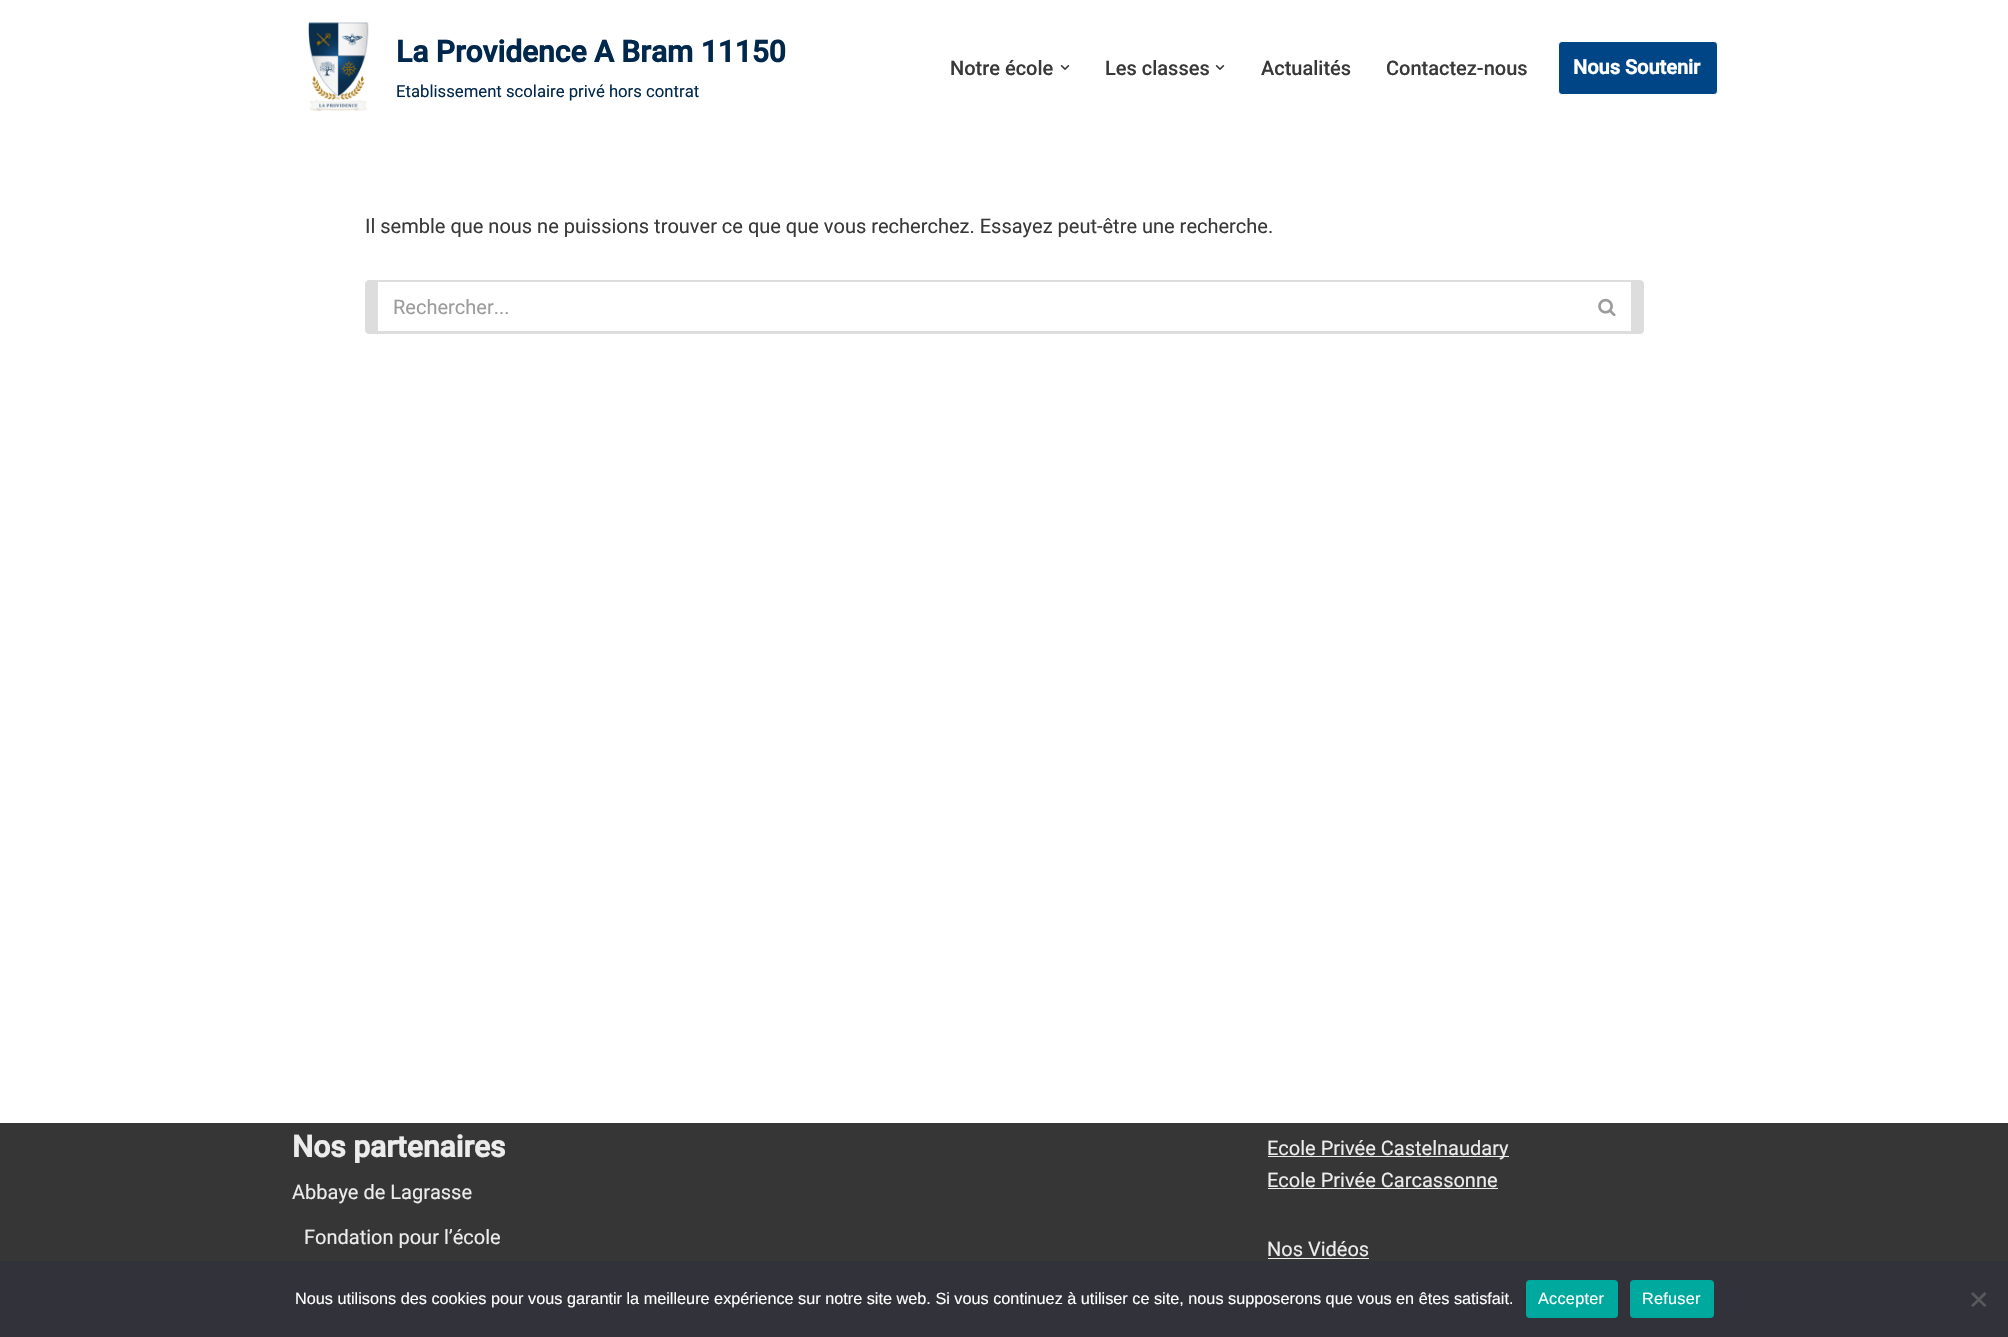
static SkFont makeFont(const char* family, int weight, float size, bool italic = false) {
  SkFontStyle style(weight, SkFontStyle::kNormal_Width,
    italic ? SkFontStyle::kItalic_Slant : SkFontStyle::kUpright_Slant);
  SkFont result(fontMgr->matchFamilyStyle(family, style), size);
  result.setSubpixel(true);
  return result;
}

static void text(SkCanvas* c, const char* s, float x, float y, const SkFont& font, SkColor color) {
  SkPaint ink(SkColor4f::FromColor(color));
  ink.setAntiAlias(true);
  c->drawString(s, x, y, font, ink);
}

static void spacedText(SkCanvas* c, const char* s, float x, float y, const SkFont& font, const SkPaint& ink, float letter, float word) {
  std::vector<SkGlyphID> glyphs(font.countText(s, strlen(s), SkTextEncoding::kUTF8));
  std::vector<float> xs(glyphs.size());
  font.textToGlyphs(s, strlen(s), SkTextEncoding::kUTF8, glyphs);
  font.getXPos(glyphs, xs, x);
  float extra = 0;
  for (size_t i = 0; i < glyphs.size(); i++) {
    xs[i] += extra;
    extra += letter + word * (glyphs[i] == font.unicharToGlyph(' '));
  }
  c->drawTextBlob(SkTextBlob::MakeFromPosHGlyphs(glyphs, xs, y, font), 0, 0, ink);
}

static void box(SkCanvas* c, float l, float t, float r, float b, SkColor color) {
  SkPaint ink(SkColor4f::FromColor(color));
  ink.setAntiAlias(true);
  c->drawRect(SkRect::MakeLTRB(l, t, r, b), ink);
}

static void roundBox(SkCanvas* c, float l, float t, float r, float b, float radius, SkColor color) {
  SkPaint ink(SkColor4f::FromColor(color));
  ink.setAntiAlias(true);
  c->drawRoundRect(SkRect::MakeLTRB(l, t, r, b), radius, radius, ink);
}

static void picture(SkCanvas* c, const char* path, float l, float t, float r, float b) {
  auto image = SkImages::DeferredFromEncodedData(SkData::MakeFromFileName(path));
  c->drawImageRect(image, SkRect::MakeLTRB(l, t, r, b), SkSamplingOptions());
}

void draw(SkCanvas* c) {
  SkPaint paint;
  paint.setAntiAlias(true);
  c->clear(0xffffffff);
  picture(c, "img_01.png", 308, 22, 369, 111);
  SkFont face1 = makeFont("Roboto", 700, 30);
  text(c, "La Providence A Bram 11150", 396, 62, face1, 0xff00274c);
  SkFont face2 = makeFont("Roboto", 400, 16.7f);
  text(c, "Etablissement scolaire privé hors contrat", 396, 97, face2, 0xff00274c);
  SkFont face3 = makeFont("Roboto", 500, 20);
  text(c, "Notre école", 950, 75, face3, 0xff393939);
  picture(c, "img_02.png", 1060, 65, 1070, 70);
  text(c, "Les classes", 1105, 75, face3, 0xff393939);
  picture(c, "img_02.png", 1215, 65, 1225, 70);
  text(c, "Actualités", 1261, 75, face3, 0xff393939);
  text(c, "Contactez-nous", 1386, 75, face3, 0xff393939);
  paint.setColor(0xff004586);
  c->drawRoundRect(SkRect::MakeLTRB(1558.5f, 41.5f, 1717.5f, 94.5f), 3.5f, 3.5f, paint);
  paint.setStyle(SkPaint::kStroke_Style);
  paint.setStrokeWidth(1);
  paint.setColor(0xffffffff);
  c->drawRoundRect(SkRect::MakeLTRB(1558.5f, 41.5f, 1717.5f, 94.5f), 3.5f, 3.5f, paint);
  SkFont face4 = makeFont("Roboto", 700, 20);
  text(c, "Nous Soutenir", 1573, 74, face4, 0xffffffff);
  SkFont face5 = makeFont("Roboto", 400, 20);
  text(c, "Il semble que nous ne puissions trouver ce que que vous recherchez. Essayez peut-être une recherche.", 365, 233, face5, 0xff393939);
  paint.setStyle(SkPaint::kFill_Style);
  paint.setColor(0xffdddddd);
  c->drawPath(SkPathBuilder(SkPathFillType::kEvenOdd).moveTo(369, 280).lineTo(1582, 280).lineTo(1582, 334).lineTo(369, 334).cubicTo(367, 334, 365, 332, 365, 330).lineTo(365, 284).cubicTo(365, 282, 367, 280, 369, 280).close().moveTo(378, 282).lineTo(1582, 282).lineTo(1582, 331).lineTo(378, 331).close().detach(), paint);
  text(c, "Rechercher...", 393, 314, face5, 0xff9c9c9c);
  c->drawPath(SkPathBuilder(SkPathFillType::kEvenOdd).moveTo(1582, 280).lineTo(1640, 280).cubicTo(1642, 280, 1644, 282, 1644, 284).lineTo(1644, 330).cubicTo(1644, 332, 1642, 334, 1640, 334).lineTo(1582, 334).close().moveTo(1582, 282).lineTo(1631, 282).lineTo(1631, 331).lineTo(1582, 331).close().detach(), paint);
  picture(c, "img_03.png", 1598, 298, 1616, 316);
  box(c, 0, 1123, 2008, 1261, 0xff363636);
  text(c, "Nos partenaires", 292, 1157, face1, 0xffececec);
  text(c, "Abbaye de Lagrasse", 292, 1199, face5, 0xffececec);
  text(c, "Fondation pour l’école", 304, 1244, face5, 0xffececec);
  box(c, 1268, 1156, 1509, 1157, 0xffececec);
  text(c, "Ecole Privée Castelnaudary", 1267, 1155, face5, 0xffececec);
  text(c, "Ecole Privée Carcassonne", 1267, 1187, face5, 0xffececec);
  box(c, 1268, 1188, 1498, 1189, 0xffececec);
  text(c, "Nos Vidéos", 1267, 1256, face5, 0xffececec);
  box(c, 1268, 1258, 1369, 1259, 0xffececec);
  box(c, 0, 1261, 2008, 1337, 0xff32323a);
  SkFont face6 = makeFont("Liberation Sans", 400, 16.25f);
  text(c, "Nous utilisons des cookies pour vous garantir la meilleure expérience sur notre site web. Si vous continuez à utiliser ce site, nous supposerons que vous en êtes satisfait.", 295, 1304, face6, 0xffffffff);
  roundBox(c, 1526, 1280, 1618, 1318, 4, 0xff00a99d);
  paint.setColor(0xffffffff);
  spacedText(c, "Accepter", 1538, 1304, face6, paint, 0.25f, 0);
  roundBox(c, 1630, 1280, 1714, 1318, 4, 0xff00a99d);
  spacedText(c, "Refuser", 1642, 1304, face6, paint, 0.25f, 0);
  paint.setColor(0xff59595d);
  c->drawPath(SkPathBuilder().moveTo(1984.5f, 1292).lineTo(1986.5f, 1294).lineTo(1973, 1307).lineTo(1971, 1305.5f).close().detach(), paint);
  c->drawPath(SkPathBuilder().moveTo(1971, 1294).lineTo(1973, 1292).lineTo(1986.5f, 1305.5f).lineTo(1984.5f, 1307).close().detach(), paint);
}
